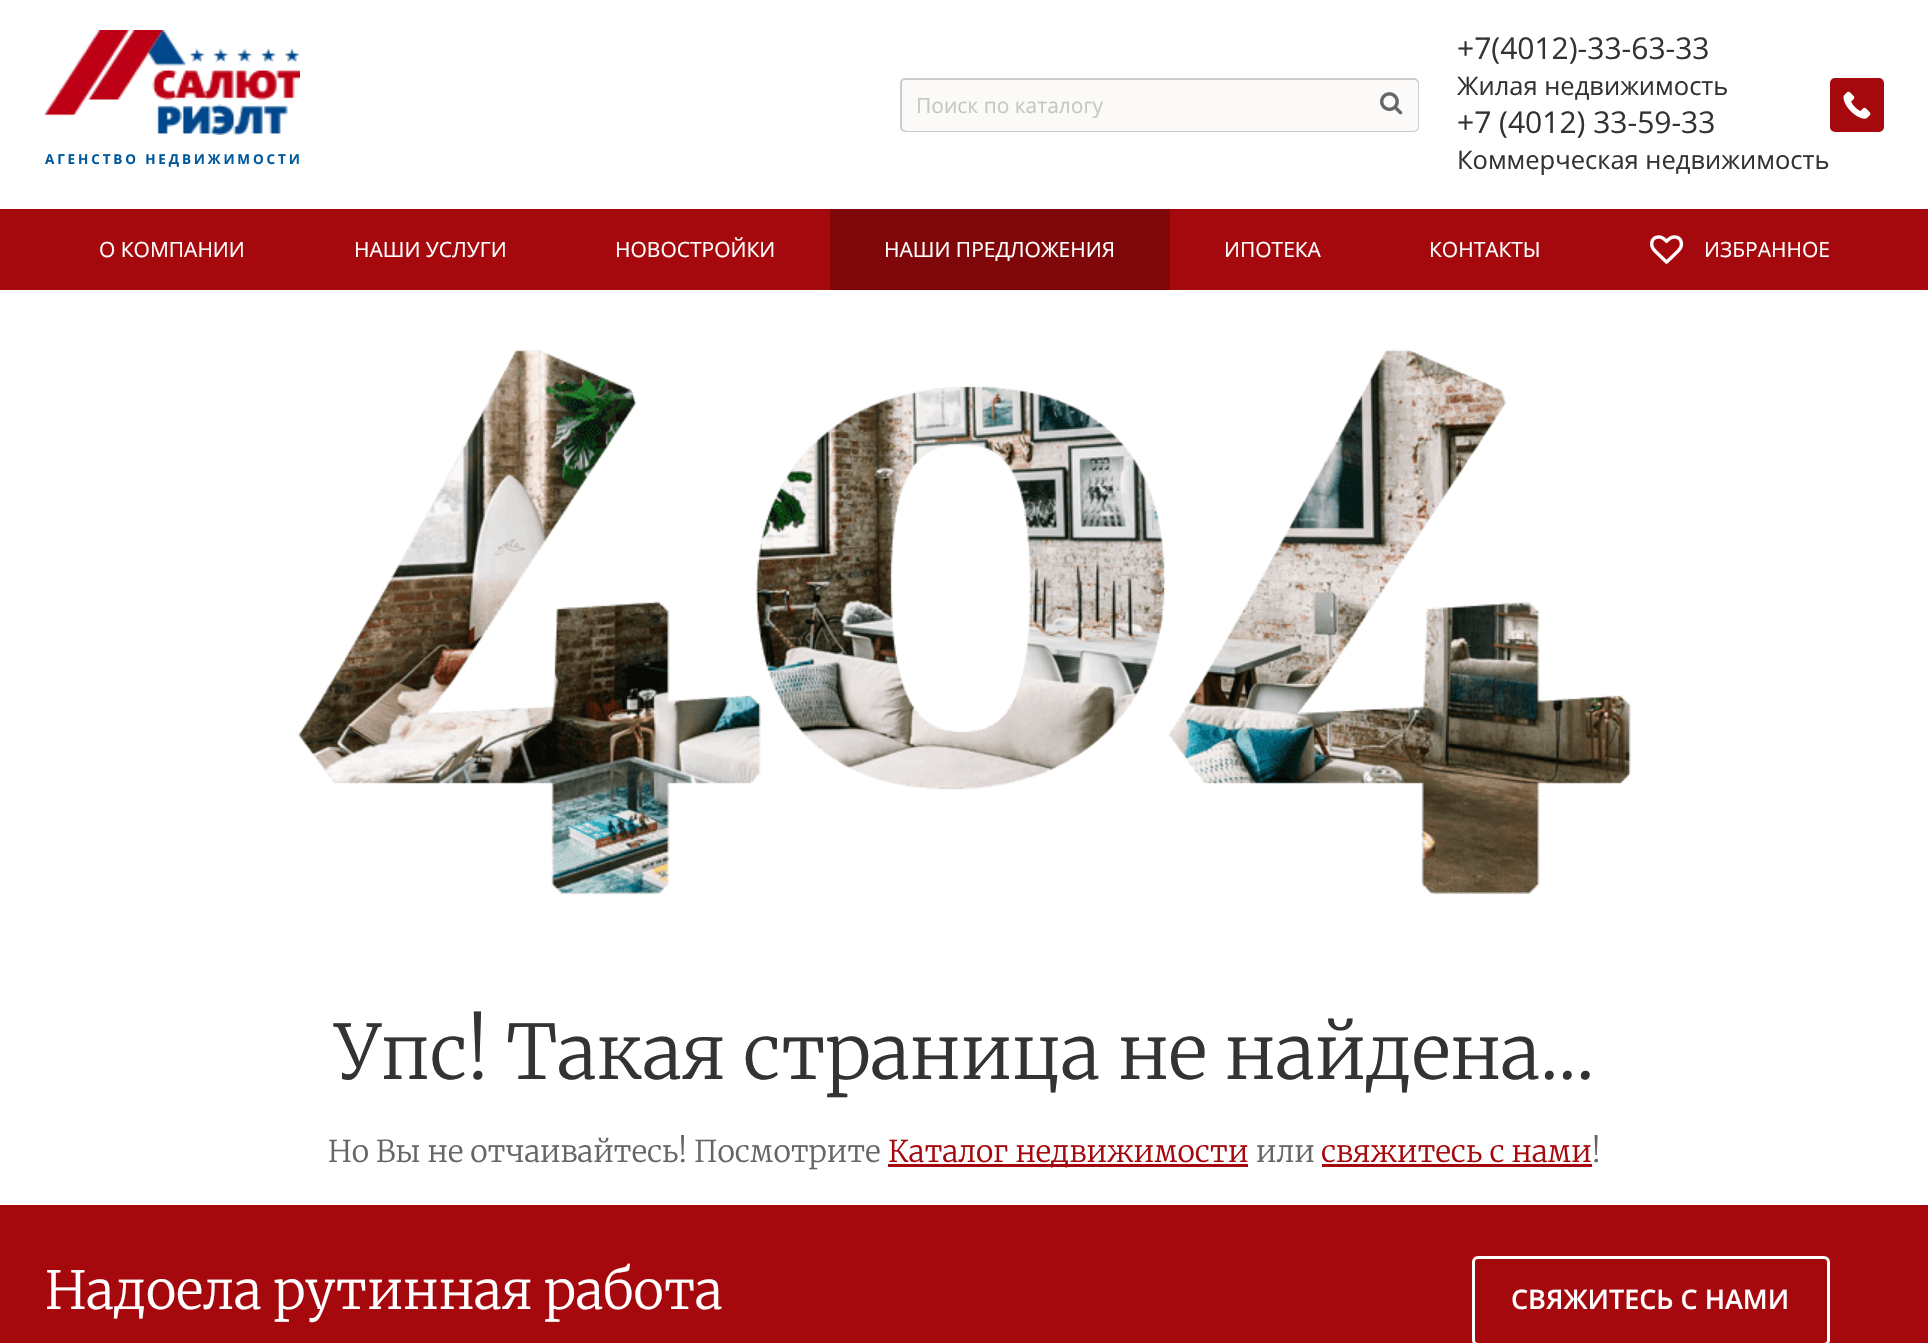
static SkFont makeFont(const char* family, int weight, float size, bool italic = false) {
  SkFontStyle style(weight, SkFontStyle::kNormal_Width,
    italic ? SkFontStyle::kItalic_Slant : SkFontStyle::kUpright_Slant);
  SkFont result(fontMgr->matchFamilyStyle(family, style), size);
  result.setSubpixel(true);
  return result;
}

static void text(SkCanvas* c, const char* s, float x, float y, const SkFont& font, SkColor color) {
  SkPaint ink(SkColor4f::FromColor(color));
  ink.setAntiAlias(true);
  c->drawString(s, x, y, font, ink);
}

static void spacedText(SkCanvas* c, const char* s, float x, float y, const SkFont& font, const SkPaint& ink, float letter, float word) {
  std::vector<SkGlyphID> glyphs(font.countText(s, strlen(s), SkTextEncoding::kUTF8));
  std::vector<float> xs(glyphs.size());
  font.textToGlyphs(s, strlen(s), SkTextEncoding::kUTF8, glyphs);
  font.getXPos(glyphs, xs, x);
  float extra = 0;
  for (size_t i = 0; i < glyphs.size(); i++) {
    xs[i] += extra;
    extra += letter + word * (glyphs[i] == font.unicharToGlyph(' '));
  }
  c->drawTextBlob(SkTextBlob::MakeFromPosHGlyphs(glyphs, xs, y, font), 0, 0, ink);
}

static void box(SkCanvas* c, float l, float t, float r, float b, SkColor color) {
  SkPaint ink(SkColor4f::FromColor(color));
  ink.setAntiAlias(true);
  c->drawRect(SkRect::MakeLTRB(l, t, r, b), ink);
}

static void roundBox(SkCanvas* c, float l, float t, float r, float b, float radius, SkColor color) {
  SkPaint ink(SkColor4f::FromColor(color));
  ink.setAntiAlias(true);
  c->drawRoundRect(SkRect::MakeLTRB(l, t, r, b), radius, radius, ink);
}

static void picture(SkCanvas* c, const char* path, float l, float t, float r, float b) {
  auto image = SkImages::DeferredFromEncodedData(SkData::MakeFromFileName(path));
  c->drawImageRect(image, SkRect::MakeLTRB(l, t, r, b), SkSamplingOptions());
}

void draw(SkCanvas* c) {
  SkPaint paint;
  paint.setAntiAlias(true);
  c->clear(0xffffffff);
  picture(c, "img_01.png", 45, 30, 300, 135);
  SkFont face1 = makeFont("Open Sans", 700, 13.5f);
  paint.setColor(0xff00599c);
  spacedText(c, "АГЕНСТВО НЕДВИЖИМОСТИ", 45, 164, face1, paint, 2.85f, 0);
  paint.setColor(0xfffbfaf8);
  c->drawRoundRect(SkRect::MakeLTRB(901, 79, 1418, 131), 4, 4, paint);
  paint.setStyle(SkPaint::kStroke_Style);
  paint.setStrokeWidth(2);
  paint.setColor(0xffcccccc);
  c->drawRoundRect(SkRect::MakeLTRB(901, 79, 1418, 131), 4, 4, paint);
  roundBox(c, 902, 80, 1418, 131, 5, 0xfffbfaf8);
  SkFont face2 = makeFont("Open Sans", 400, 21);
  text(c, "Поиск по каталогу", 916, 113, face2, 0xffc6c6c5);
  roundBox(c, 1367, 80, 1418, 131, 5, 0xfffbfaf8);
  picture(c, "img_02.png", 1380, 92, 1403, 115);
  SkFont face3 = makeFont("Open Sans", 400, 30);
  text(c, "+7(4012)-33-63-33", 1457, 59, face3, 0xff333333);
  SkFont face4 = makeFont("Open Sans", 400, 25.5f);
  text(c, "Жилая недвижимость", 1457, 95, face4, 0xff333333);
  text(c, "+7 (4012) 33-59-33", 1457, 133, face3, 0xff333333);
  text(c, "Коммерческая недвижимость", 1457, 169, face4, 0xff333333);
  roundBox(c, 1830, 78, 1884, 132, 5, 0xffa6090d);
  picture(c, "img_03.png", 1843, 91, 1871, 119);
  box(c, 0, 209, 1928, 290, 0xffa6090d);
  text(c, "О КОМПАНИИ", 99, 257, face2, 0xffffffff);
  text(c, "НАШИ УСЛУГИ", 354, 257, face2, 0xffffffff);
  text(c, "НОВОСТРОЙКИ", 615, 257, face2, 0xffffffff);
  box(c, 830, 209, 1170, 290, 0xff7f070a);
  text(c, "НАШИ ПРЕДЛОЖЕНИЯ", 884, 257, face2, 0xffffffff);
  text(c, "ИПОТЕКА", 1224, 257, face2, 0xffffffff);
  text(c, "КОНТАКТЫ", 1429, 257, face2, 0xffffffff);
  picture(c, "img_04.png", 1650, 235, 1684, 264);
  text(c, "ИЗБРАННОЕ", 1704, 257, face2, 0xffffffff);
  picture(c, "img_05.png", 298, 349, 1631, 894);
  SkFont face5 = makeFont("Merriweather", 300, 75);
  text(c, "Упс! Такая страница не найдена...", 334, 1079, face5, 0xff333333);
  SkFont face6 = makeFont("Merriweather", 300, 30);
  text(c, "Но Вы не отчаивайтесь! Посмотрите", 328, 1162, face6, 0xff666666);
  box(c, 888, 1164, 1248, 1167, 0xffa6090d);
  text(c, "Каталог недвижимости", 888, 1162, face6, 0xffa6090d);
  text(c, "или", 1256, 1162, face6, 0xff666666);
  text(c, "свяжитесь с нами", 1321, 1162, face6, 0xffa6090d);
  box(c, 1322, 1164, 1592, 1167, 0xffa6090d);
  text(c, "!", 1592, 1162, face6, 0xff666666);
  box(c, 0, 1205, 1928, 1343, 0xffa6090d);
  SkFont face7 = makeFont("Merriweather", 300, 52.5f);
  text(c, "Надоела рутинная работа", 45, 1309, face7, 0xffffffff);
  paint.setStrokeWidth(3);
  paint.setColor(0xffffffff);
  c->drawRoundRect(SkRect::MakeLTRB(1473.5f, 1257.5f, 1828.5f, 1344.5f), 4.5f, 4.5f, paint);
  SkFont face8 = makeFont("Open Sans", 600, 27);
  text(c, "СВЯЖИТЕСЬ С НАМИ", 1511, 1309, face8, 0xffffffff);
}
